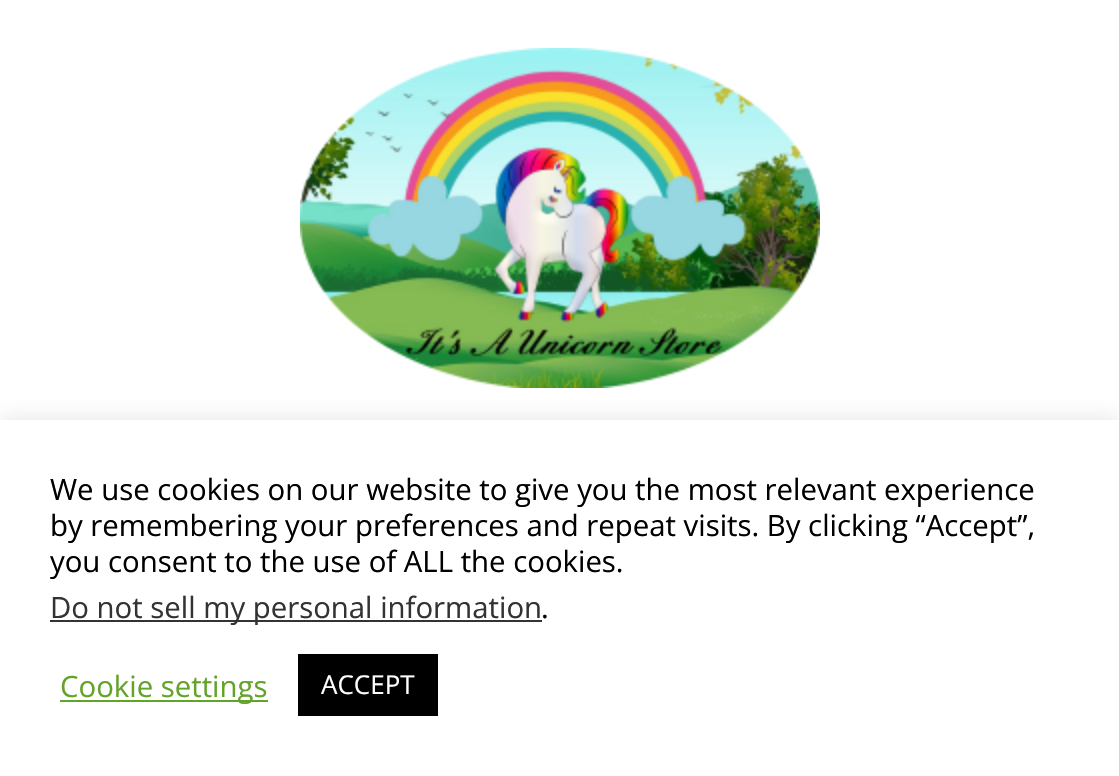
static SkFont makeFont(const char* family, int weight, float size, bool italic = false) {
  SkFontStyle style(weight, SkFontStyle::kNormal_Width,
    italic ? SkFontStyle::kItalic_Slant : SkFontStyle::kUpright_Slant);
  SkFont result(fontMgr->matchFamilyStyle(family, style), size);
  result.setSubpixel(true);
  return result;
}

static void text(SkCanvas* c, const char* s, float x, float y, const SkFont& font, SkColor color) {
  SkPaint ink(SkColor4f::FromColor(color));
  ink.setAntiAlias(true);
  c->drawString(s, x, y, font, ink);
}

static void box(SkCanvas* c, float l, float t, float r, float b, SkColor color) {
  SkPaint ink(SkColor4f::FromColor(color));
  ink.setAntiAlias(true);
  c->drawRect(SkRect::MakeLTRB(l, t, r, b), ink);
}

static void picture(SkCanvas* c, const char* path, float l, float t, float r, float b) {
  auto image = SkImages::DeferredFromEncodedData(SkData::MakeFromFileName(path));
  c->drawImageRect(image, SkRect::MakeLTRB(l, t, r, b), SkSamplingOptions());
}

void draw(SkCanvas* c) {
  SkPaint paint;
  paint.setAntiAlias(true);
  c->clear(0xffffffff);
  picture(c, "img_01.png", 300, 48, 820, 388);
  paint.setColor(0x4dacabab);
  paint.setMaskFilter(SkMaskFilter::MakeBlur(kNormal_SkBlurStyle, 10));
  c->drawRect(SkRect::MakeLTRB(0, 418, 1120, 774), paint);
  paint.setMaskFilter(nullptr);
  box(c, 0, 420, 1119, 776, 0xffffffff);
  SkFont face1 = makeFont("Open Sans", 400, 29.35f);
  text(c, "We use cookies on our website to give you the most relevant experience", 50, 500, face1, 0xff000000);
  text(c, "by remembering your preferences and repeat visits. By clicking “Accept”,", 50, 536, face1, 0xff000000);
  text(c, "you consent to the use of ALL the cookies.", 50, 572, face1, 0xff000000);
  box(c, 50, 620, 542, 622, 0xff333333);
  text(c, "Do not sell my personal information", 50, 618, face1, 0xff333333);
  text(c, ".", 541, 618, face1, 0xff000000);
  box(c, 60, 700, 268, 702, 0xff62a329);
  text(c, "Cookie settings", 60, 697, face1, 0xff62a329);
  box(c, 298, 654, 438, 716, 0xff000000);
  SkFont face2 = makeFont("Open Sans", 400, 26);
  text(c, "ACCEPT", 321, 694, face2, 0xffffffff);
}
